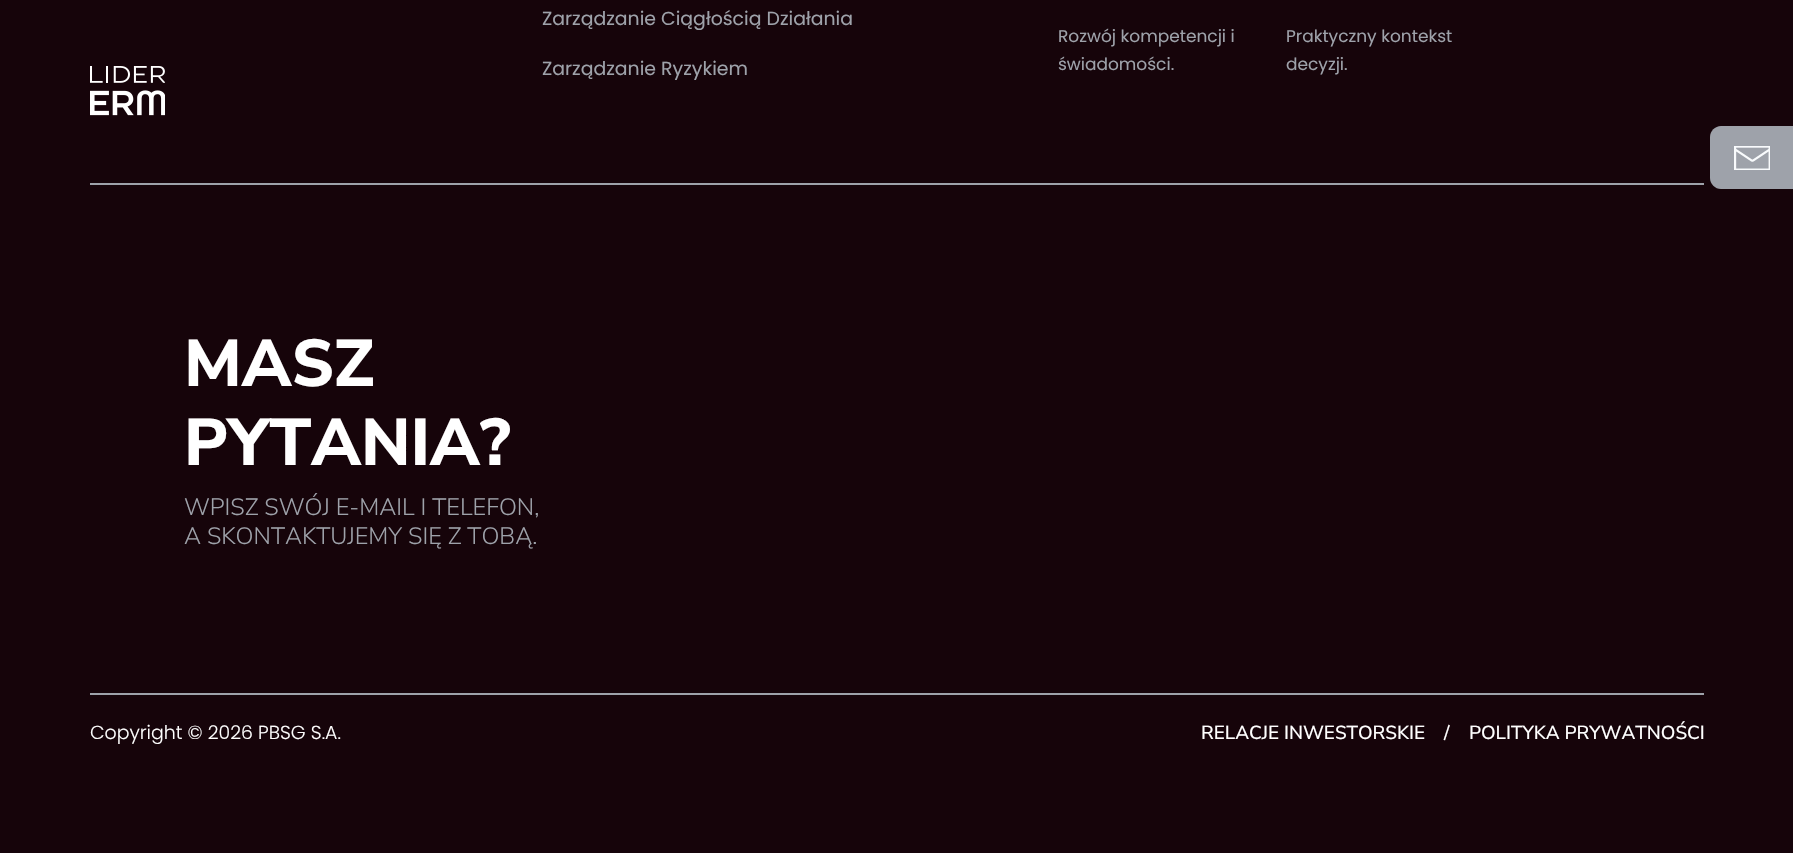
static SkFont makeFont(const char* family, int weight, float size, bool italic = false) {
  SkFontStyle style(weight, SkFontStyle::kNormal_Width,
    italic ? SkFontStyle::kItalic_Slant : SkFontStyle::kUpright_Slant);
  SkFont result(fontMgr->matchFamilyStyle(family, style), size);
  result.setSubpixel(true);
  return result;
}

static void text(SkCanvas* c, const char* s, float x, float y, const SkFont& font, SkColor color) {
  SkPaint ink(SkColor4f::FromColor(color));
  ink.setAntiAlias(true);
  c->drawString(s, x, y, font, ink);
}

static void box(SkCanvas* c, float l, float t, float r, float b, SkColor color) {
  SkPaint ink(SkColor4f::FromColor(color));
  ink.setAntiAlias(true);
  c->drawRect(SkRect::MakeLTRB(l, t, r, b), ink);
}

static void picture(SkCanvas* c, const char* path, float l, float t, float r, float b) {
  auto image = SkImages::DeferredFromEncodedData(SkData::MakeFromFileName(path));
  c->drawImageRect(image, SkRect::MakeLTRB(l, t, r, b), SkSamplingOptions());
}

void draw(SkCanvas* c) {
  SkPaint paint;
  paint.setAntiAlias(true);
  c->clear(0xff16040a);
  box(c, 90, 183, 1704, 185, 0xff9ea2aa);
  SkFont face1 = makeFont("Poppins", 400, 18.9f);
  text(c, "Zarządzanie Ciągłością Działania", 542, 25, face1, 0xff9ea2aa);
  text(c, "Zarządzanie Ryzykiem", 542, 75, face1, 0xff9ea2aa);
  SkFont face2 = makeFont("Poppins", 400, 17);
  text(c, "Rozwój kompetencji i", 1058, 42, face2, 0xff9ea2aa);
  text(c, "świadomości.", 1058, 70, face2, 0xff9ea2aa);
  text(c, "Praktyczny kontekst", 1286, 42, face2, 0xff9ea2aa);
  text(c, "decyzji.", 1286, 70, face2, 0xff9ea2aa);
  picture(c, "img_01.png", 90, 66, 165, 116);
  box(c, 90, 693, 1704, 695, 0xff9ea2aa);
  SkFont face3 = makeFont("Nunito Sans", 800, 66);
  text(c, "MASZ", 184, 386, face3, 0xffffffff);
  text(c, "PYTANIA?", 184, 465, face3, 0xffffffff);
  SkFont face4 = makeFont("Nunito Sans", 300, 23.6f);
  text(c, "WPISZ SWÓJ E-MAIL I TELEFON,", 184, 515, face4, 0xff9ea2aa);
  text(c, "A SKONTAKTUJEMY SIĘ Z TOBĄ.", 184, 544, face4, 0xff9ea2aa);
  SkFont face5 = makeFont("Poppins", 300, 18.9f);
  text(c, "Copyright © 2026 PBSG S.A.", 90, 739, face5, 0xffffffff);
  SkFont face6 = makeFont("Nunito Sans", 500, 18.9f);
  text(c, "RELACJE INWESTORSKIE", 1201, 739, face6, 0xffffffff);
  text(c, "/", 1444, 739, face6, 0xffffffff);
  text(c, "POLITYKA PRYWATNOŚCI", 1469, 739, face6, 0xffffffff);
  {
    const SkColor colors[] = {0xff9ea2aa, 0xff9ea2aa, 0xffda0d00, 0xff8a0001};
    const float stops[] = {0, 0.5f, 0.5f, 1};
    const SkPoint ends[] = {{1710, 158}, {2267, 157}};
    paint.setShader(SkGradientShader::MakeLinear(ends, colors, stops, 4, SkTileMode::kClamp));
    paint.setAlpha(255);
  }
  c->drawPath(SkPathBuilder().moveTo(1721, 126).lineTo(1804, 126).lineTo(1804, 189).lineTo(1721, 189).cubicTo(1715, 189, 1710, 184, 1710, 178).lineTo(1710, 137).cubicTo(1710, 131, 1715, 126, 1721, 126).close().detach(), paint);
  picture(c, "img_02.png", 1734, 146, 1770, 170);
}
